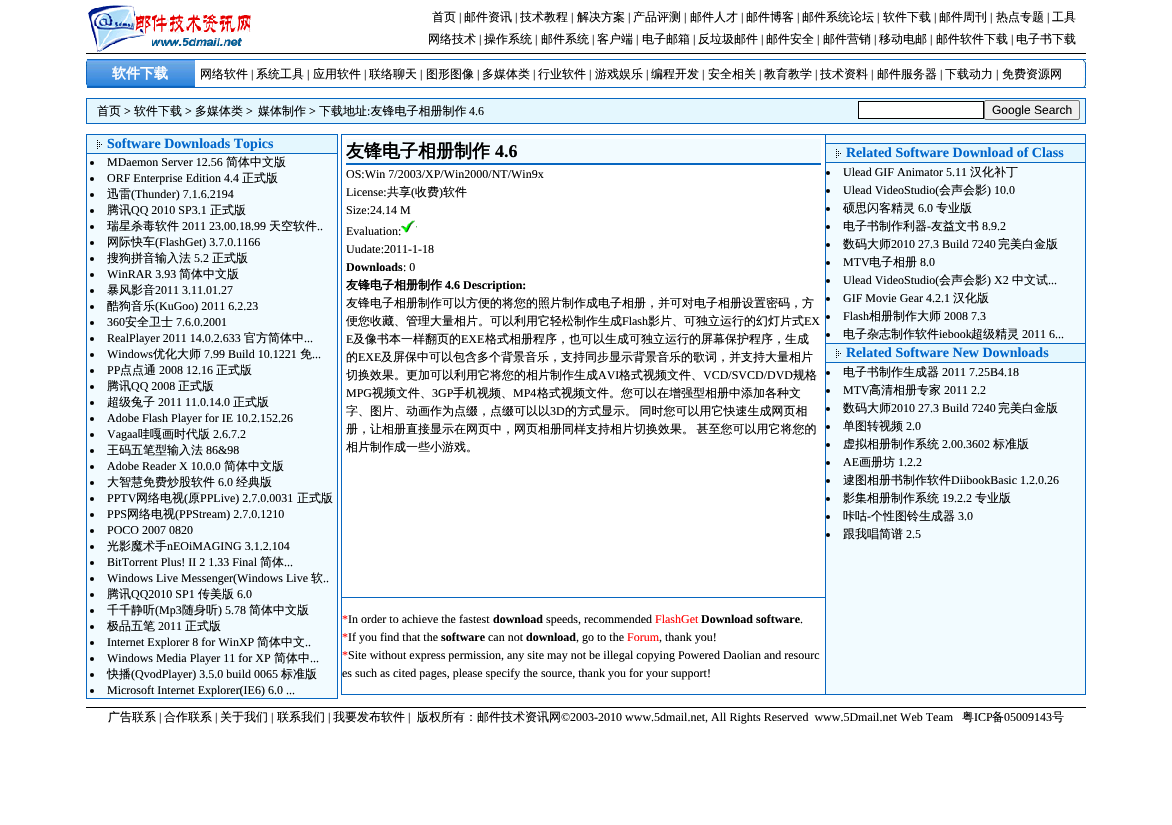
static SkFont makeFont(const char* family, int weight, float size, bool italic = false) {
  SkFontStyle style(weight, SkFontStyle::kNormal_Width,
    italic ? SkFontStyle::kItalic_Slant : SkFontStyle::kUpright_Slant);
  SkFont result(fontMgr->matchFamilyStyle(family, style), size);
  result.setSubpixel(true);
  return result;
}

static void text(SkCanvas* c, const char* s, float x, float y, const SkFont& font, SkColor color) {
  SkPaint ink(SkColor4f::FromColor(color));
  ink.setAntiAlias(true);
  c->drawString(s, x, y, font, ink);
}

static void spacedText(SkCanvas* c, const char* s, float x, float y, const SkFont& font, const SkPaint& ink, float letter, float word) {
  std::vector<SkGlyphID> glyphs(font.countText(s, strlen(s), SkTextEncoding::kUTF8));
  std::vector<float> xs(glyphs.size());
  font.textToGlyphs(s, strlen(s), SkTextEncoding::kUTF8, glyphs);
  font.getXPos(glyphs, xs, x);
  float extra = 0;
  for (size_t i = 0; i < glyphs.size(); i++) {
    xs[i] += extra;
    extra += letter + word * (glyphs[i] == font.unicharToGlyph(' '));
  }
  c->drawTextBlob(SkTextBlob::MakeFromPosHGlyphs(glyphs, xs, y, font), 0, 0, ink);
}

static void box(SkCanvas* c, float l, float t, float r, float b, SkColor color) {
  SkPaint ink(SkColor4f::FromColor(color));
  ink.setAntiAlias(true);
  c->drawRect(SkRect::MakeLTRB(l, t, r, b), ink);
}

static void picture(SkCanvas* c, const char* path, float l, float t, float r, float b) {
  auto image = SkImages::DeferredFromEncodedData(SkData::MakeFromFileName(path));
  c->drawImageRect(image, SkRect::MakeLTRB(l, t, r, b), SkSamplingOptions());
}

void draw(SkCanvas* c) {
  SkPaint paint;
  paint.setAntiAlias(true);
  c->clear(0xffffffff);
  picture(c, "img_01.png", 88, 5, 251, 52);
  box(c, 86, 53, 1086, 54, 0xff000000);
  SkFont face1 = makeFont("WenQuanYi Zen Hei", 500, 12);
  text(c, "首页", 432, 21, face1, 0xff000000);
  SkFont face2 = makeFont("Liberation Serif", 400, 12);
  text(c, "|", 459, 21, face2, 0xff000000);
  text(c, "邮件资讯", 464, 21, face1, 0xff000000);
  text(c, "|", 515, 21, face2, 0xff000000);
  text(c, "技术教程", 520, 21, face1, 0xff000000);
  text(c, "|", 571, 21, face2, 0xff000000);
  text(c, "解决方案", 577, 21, face1, 0xff000000);
  text(c, "|", 628, 21, face2, 0xff000000);
  text(c, "产品评测", 633, 21, face1, 0xff000000);
  text(c, "|", 684, 21, face2, 0xff000000);
  text(c, "邮件人才", 690, 21, face1, 0xff000000);
  text(c, "|", 741, 21, face2, 0xff000000);
  text(c, "邮件博客", 746, 21, face1, 0xff000000);
  text(c, "|", 797, 21, face2, 0xff000000);
  text(c, "邮件系统论坛", 802, 21, face1, 0xff000000);
  text(c, "|", 877, 21, face2, 0xff000000);
  text(c, "软件下载", 883, 21, face1, 0xff000000);
  text(c, "|", 934, 21, face2, 0xff000000);
  text(c, "邮件周刊", 939, 21, face1, 0xff000000);
  text(c, "|", 990, 21, face2, 0xff000000);
  text(c, "热点专题", 996, 21, face1, 0xff000000);
  text(c, "|", 1047, 21, face2, 0xff000000);
  text(c, "工具", 1052, 21, face1, 0xff000000);
  text(c, "网络技术", 428, 43, face1, 0xff000000);
  text(c, "|", 479, 43, face2, 0xff000000);
  text(c, "操作系统", 484, 43, face1, 0xff000000);
  text(c, "|", 535, 43, face2, 0xff000000);
  text(c, "邮件系统", 541, 43, face1, 0xff000000);
  text(c, "|", 592, 43, face2, 0xff000000);
  text(c, "客户端", 597, 43, face1, 0xff000000);
  text(c, "|", 636, 43, face2, 0xff000000);
  text(c, "电子邮箱", 642, 43, face1, 0xff000000);
  text(c, "|", 693, 43, face2, 0xff000000);
  text(c, "反垃圾邮件", 698, 43, face1, 0xff000000);
  text(c, "|", 761, 43, face2, 0xff000000);
  text(c, "邮件安全", 766, 43, face1, 0xff000000);
  text(c, "|", 817, 43, face2, 0xff000000);
  text(c, "邮件营销", 823, 43, face1, 0xff000000);
  text(c, "|", 874, 43, face2, 0xff000000);
  text(c, "移动电邮", 879, 43, face1, 0xff000000);
  text(c, "|", 930, 43, face2, 0xff000000);
  text(c, "邮件软件下载", 936, 43, face1, 0xff000000);
  text(c, "|", 1011, 43, face2, 0xff000000);
  text(c, "电子书下载", 1016, 43, face1, 0xff000000);
  picture(c, "img_02.png", 86, 59, 87, 87);
  picture(c, "img_03.png", 87, 59, 195, 88);
  SkFont face3 = makeFont("WenQuanYi Zen Hei", 700, 14);
  text(c, "软件下载", 112, 78, face3, 0xffffffff);
  picture(c, "img_04.png", 1083, 60, 1086, 87);
  box(c, 195, 59, 1086, 60, 0xff0766c0);
  box(c, 195, 87, 1086, 88, 0xff0766c0);
  text(c, "网络软件", 200, 78, face1, 0xff000000);
  text(c, "|", 251, 78, face2, 0xff000000);
  text(c, "系统工具", 256, 78, face1, 0xff000000);
  text(c, "|", 307, 78, face2, 0xff000000);
  text(c, "应用软件", 313, 78, face1, 0xff000000);
  text(c, "|", 364, 78, face2, 0xff000000);
  text(c, "联络聊天", 369, 78, face1, 0xff000000);
  text(c, "|", 420, 78, face2, 0xff000000);
  text(c, "图形图像", 426, 78, face1, 0xff000000);
  text(c, "|", 477, 78, face2, 0xff000000);
  text(c, "多媒体类", 482, 78, face1, 0xff000000);
  text(c, "|", 533, 78, face2, 0xff000000);
  text(c, "行业软件", 538, 78, face1, 0xff000000);
  text(c, "|", 589, 78, face2, 0xff000000);
  text(c, "游戏娱乐", 595, 78, face1, 0xff000000);
  text(c, "|", 646, 78, face2, 0xff000000);
  text(c, "编程开发", 651, 78, face1, 0xff000000);
  text(c, "|", 702, 78, face2, 0xff000000);
  text(c, "安全相关", 708, 78, face1, 0xff000000);
  text(c, "|", 759, 78, face2, 0xff000000);
  text(c, "教育教学", 764, 78, face1, 0xff000000);
  text(c, "|", 815, 78, face2, 0xff000000);
  text(c, "技术资料", 820, 78, face1, 0xff000000);
  text(c, "|", 871, 78, face2, 0xff000000);
  text(c, "邮件服务器", 877, 78, face1, 0xff000000);
  text(c, "|", 940, 78, face2, 0xff000000);
  text(c, "下载动力", 945, 78, face1, 0xff000000);
  text(c, "|", 996, 78, face2, 0xff000000);
  text(c, "免费资源网", 1002, 78, face1, 0xff000000);
  paint.setColor(0xffe4f7fe);
  c->drawRect(SkRect::MakeLTRB(86.5f, 98.5f, 1085.5f, 123.5f), paint);
  paint.setStyle(SkPaint::kStroke_Style);
  paint.setStrokeWidth(1);
  paint.setColor(0xff0766c0);
  c->drawRect(SkRect::MakeLTRB(86.5f, 98.5f, 1085.5f, 123.5f), paint);
  text(c, "首页", 97, 115, face1, 0xff000000);
  text(c, ">", 124, 115, face2, 0xff000000);
  text(c, "软件下载", 134, 115, face1, 0xff000000);
  text(c, ">", 185, 115, face2, 0xff000000);
  text(c, "多媒体类", 195, 115, face1, 0xff000000);
  text(c, ">", 246, 115, face2, 0xff000000);
  text(c, "媒体制作", 258, 115, face1, 0xff000000);
  text(c, ">", 309, 115, face2, 0xff000000);
  text(c, "下载地址 友锋电子相册制作", 319, 115, face1, 0xff000000);
  text(c, "4.6", 469, 115, face2, 0xff000000);
  text(c, ":", 367, 115, face2, 0xff000000);
  paint.setStyle(SkPaint::kFill_Style);
  paint.setColor(0xffffffff);
  c->drawRect(SkRect::MakeLTRB(858.5f, 101.5f, 983.5f, 118.5f), paint);
  paint.setStyle(SkPaint::kStroke_Style);
  paint.setColor(0xff000000);
  c->drawRect(SkRect::MakeLTRB(858.5f, 101.5f, 983.5f, 118.5f), paint);
  paint.setStyle(SkPaint::kFill_Style);
  paint.setColor(0xffefefef);
  c->drawRoundRect(SkRect::MakeLTRB(984.5f, 100.5f, 1079.5f, 119.5f), 1.5f, 1.5f, paint);
  paint.setStyle(SkPaint::kStroke_Style);
  paint.setColor(0xff767676);
  c->drawRoundRect(SkRect::MakeLTRB(984.5f, 100.5f, 1079.5f, 119.5f), 1.5f, 1.5f, paint);
  SkFont face4 = makeFont("Liberation Sans", 400, 12);
  text(c, "Google Search", 992, 114, face4, 0xff000000);
  box(c, 87, 154, 337, 698, 0xfff2fbff);
  box(c, 337, 134, 338, 699, 0xff0766c0);
  box(c, 86, 698, 338, 699, 0xff0766c0);
  box(c, 86, 134, 87, 699, 0xff0766c0);
  box(c, 87, 135, 337, 153, 0xffe4f7fe);
  picture(c, "img_05.png", 97, 140, 102, 149);
  box(c, 87, 134, 337, 135, 0xff0766c0);
  box(c, 87, 153, 337, 154, 0xff0766c0);
  SkFont face5 = makeFont("Liberation Serif", 700, 14);
  text(c, "Software Downloads Topics", 107, 148, face5, 0xff0066cb);
  paint.setStyle(SkPaint::kFill_Style);
  paint.setColor(0xff000000);
  c->drawCircle(92, 163, 2, paint);
  text(c, "MDaemon Server 12.56", 107, 166, face2, 0xff000000);
  text(c, "简体中文版", 226, 166, face1, 0xff000000);
  c->drawCircle(92, 179, 2, paint);
  text(c, "ORF Enterprise Edition 4.4", 107, 182, face2, 0xff000000);
  text(c, "正式版", 242, 182, face1, 0xff000000);
  c->drawCircle(92, 195, 2, paint);
  text(c, "迅雷", 107, 198, face1, 0xff000000);
  text(c, "(Thunder) 7.1.6.2194", 131, 198, face2, 0xff000000);
  c->drawCircle(92, 211, 2, paint);
  text(c, "腾讯", 107, 214, face1, 0xff000000);
  text(c, "QQ 2010 SP3.1", 131, 214, face2, 0xff000000);
  text(c, "正式版", 210, 214, face1, 0xff000000);
  c->drawCircle(92, 227, 2, paint);
  text(c, "瑞星杀毒软件", 107, 230, face1, 0xff000000);
  text(c, "2011 23.00.18.99", 182, 230, face2, 0xff000000);
  text(c, "天空软件", 269, 230, face1, 0xff000000);
  text(c, "..", 317, 230, face2, 0xff000000);
  c->drawCircle(92, 243, 2, paint);
  text(c, "网际快车", 107, 246, face1, 0xff000000);
  text(c, "(FlashGet) 3.7.0.1166", 155, 246, face2, 0xff000000);
  c->drawCircle(92, 259, 2, paint);
  text(c, "搜狗拼音输入法", 107, 262, face1, 0xff000000);
  text(c, "5.2", 194, 262, face2, 0xff000000);
  text(c, "正式版", 212, 262, face1, 0xff000000);
  c->drawCircle(92, 275, 2, paint);
  text(c, "WinRAR 3.93", 107, 278, face2, 0xff000000);
  text(c, "简体中文版", 179, 278, face1, 0xff000000);
  c->drawCircle(92, 291, 2, paint);
  text(c, "暴风影音", 107, 294, face1, 0xff000000);
  text(c, "2011 3.11.01.27", 155, 294, face2, 0xff000000);
  c->drawCircle(92, 307, 2, paint);
  text(c, "酷狗音乐", 107, 310, face1, 0xff000000);
  text(c, "(KuGoo) 2011 6.2.23", 155, 310, face2, 0xff000000);
  c->drawCircle(92, 323, 2, paint);
  text(c, "360", 107, 326, face2, 0xff000000);
  text(c, "安全卫士", 125, 326, face1, 0xff000000);
  text(c, "7.6.0.2001", 176, 326, face2, 0xff000000);
  c->drawCircle(92, 339, 2, paint);
  text(c, "RealPlayer 2011 14.0.2.633", 107, 342, face2, 0xff000000);
  text(c, "官方简体中", 244, 342, face1, 0xff000000);
  text(c, "...", 304, 342, face2, 0xff000000);
  c->drawCircle(92, 355, 2, paint);
  text(c, "Windows", 107, 358, face2, 0xff000000);
  text(c, "优化大师", 153, 358, face1, 0xff000000);
  text(c, "7.99 Build 10.1221", 204, 358, face2, 0xff000000);
  text(c, "免", 300, 358, face1, 0xff000000);
  text(c, "...", 312, 358, face2, 0xff000000);
  c->drawCircle(92, 371, 2, paint);
  text(c, "PP", 107, 374, face2, 0xff000000);
  text(c, "点点通", 120, 374, face1, 0xff000000);
  text(c, "2008 12.16", 159, 374, face2, 0xff000000);
  text(c, "正式版", 216, 374, face1, 0xff000000);
  c->drawCircle(92, 387, 2, paint);
  text(c, "腾讯", 107, 390, face1, 0xff000000);
  text(c, "QQ 2008", 131, 390, face2, 0xff000000);
  text(c, "正式版", 178, 390, face1, 0xff000000);
  c->drawCircle(92, 403, 2, paint);
  text(c, "超级兔子", 107, 406, face1, 0xff000000);
  text(c, "2011 11.0.14.0", 158, 406, face2, 0xff000000);
  text(c, "正式版", 233, 406, face1, 0xff000000);
  c->drawCircle(92, 419, 2, paint);
  text(c, "Adobe Flash Player for IE 10.2.152.26", 107, 422, face2, 0xff000000);
  c->drawCircle(92, 435, 2, paint);
  text(c, "Vagaa", 107, 438, face2, 0xff000000);
  text(c, "哇嘎画时代版", 138, 438, face1, 0xff000000);
  text(c, "2.6.7.2", 213, 438, face2, 0xff000000);
  c->drawCircle(92, 451, 2, paint);
  text(c, "王码五笔型输入法", 107, 454, face1, 0xff000000);
  text(c, "86&98", 206, 454, face2, 0xff000000);
  c->drawCircle(92, 467, 2, paint);
  text(c, "Adobe Reader X 10.0.0", 107, 470, face2, 0xff000000);
  text(c, "简体中文版", 224, 470, face1, 0xff000000);
  c->drawCircle(92, 483, 2, paint);
  text(c, "大智慧免费炒股软件", 107, 486, face1, 0xff000000);
  text(c, "6.0", 218, 486, face2, 0xff000000);
  text(c, "经典版", 236, 486, face1, 0xff000000);
  c->drawCircle(92, 499, 2, paint);
  text(c, "PPTV", 107, 502, face2, 0xff000000);
  text(c, "网络电视", 136, 502, face1, 0xff000000);
  text(c, "(", 184, 502, face2, 0xff000000);
  text(c, "原", 188, 502, face1, 0xff000000);
  text(c, "PPLive) 2.7.0.0031", 200, 502, face2, 0xff000000);
  text(c, "正式版", 297, 502, face1, 0xff000000);
  c->drawCircle(92, 515, 2, paint);
  text(c, "PPS", 107, 518, face2, 0xff000000);
  text(c, "网络电视", 127, 518, face1, 0xff000000);
  text(c, "(PPStream) 2.7.0.1210", 175, 518, face2, 0xff000000);
  c->drawCircle(92, 531, 2, paint);
  text(c, "POCO 2007 0820", 107, 534, face2, 0xff000000);
  c->drawCircle(92, 547, 2, paint);
  text(c, "光影魔术手", 107, 550, face1, 0xff000000);
  text(c, "nEOiMAGING 3.1.2.104", 167, 550, face2, 0xff000000);
  c->drawCircle(92, 563, 2, paint);
  text(c, "BitTorrent Plus! II 2 1.33 Final", 107, 566, face2, 0xff000000);
  text(c, "简体", 260, 566, face1, 0xff000000);
  text(c, "...", 284, 566, face2, 0xff000000);
  c->drawCircle(92, 579, 2, paint);
  text(c, "Windows Live Messenger(Windows Live", 107, 582, face2, 0xff000000);
  text(c, "软", 311, 582, face1, 0xff000000);
  text(c, "..", 323, 582, face2, 0xff000000);
  c->drawCircle(92, 595, 2, paint);
  text(c, "腾讯", 107, 598, face1, 0xff000000);
  text(c, "QQ2010 SP1", 131, 598, face2, 0xff000000);
  text(c, "传美版", 198, 598, face1, 0xff000000);
  text(c, "6.0", 237, 598, face2, 0xff000000);
  c->drawCircle(92, 611, 2, paint);
  text(c, "千千静听", 107, 614, face1, 0xff000000);
  text(c, "(Mp3", 155, 614, face2, 0xff000000);
  text(c, "随身听", 182, 614, face1, 0xff000000);
  text(c, ") 5.78", 218, 614, face2, 0xff000000);
  text(c, "简体中文版", 249, 614, face1, 0xff000000);
  c->drawCircle(92, 627, 2, paint);
  text(c, "极品五笔", 107, 630, face1, 0xff000000);
  text(c, "2011", 158, 630, face2, 0xff000000);
  text(c, "正式版", 185, 630, face1, 0xff000000);
  c->drawCircle(92, 643, 2, paint);
  text(c, "Internet Explorer 8 for WinXP", 107, 646, face2, 0xff000000);
  text(c, "简体中文", 257, 646, face1, 0xff000000);
  text(c, "..", 305, 646, face2, 0xff000000);
  c->drawCircle(92, 659, 2, paint);
  text(c, "Windows Media Player 11 for XP", 107, 662, face2, 0xff000000);
  text(c, "简体中", 274, 662, face1, 0xff000000);
  text(c, "...", 310, 662, face2, 0xff000000);
  c->drawCircle(92, 675, 2, paint);
  text(c, "快播", 107, 678, face1, 0xff000000);
  text(c, "(QvodPlayer) 3.5.0 build 0065", 131, 678, face2, 0xff000000);
  text(c, "标准版", 281, 678, face1, 0xff000000);
  c->drawCircle(92, 691, 2, paint);
  text(c, "Microsoft Internet Explorer(IE6) 6.0 ...", 107, 694, face2, 0xff000000);
  box(c, 341, 134, 1086, 135, 0xff0766c0);
  box(c, 1085, 134, 1086, 695, 0xff0766c0);
  box(c, 341, 694, 1086, 695, 0xff0766c0);
  box(c, 341, 134, 342, 695, 0xff0766c0);
  box(c, 346, 139, 821, 163, 0xfff2fbff);
  box(c, 346, 163, 821, 165, 0xff0766c0);
  SkFont face6 = makeFont("WenQuanYi Zen Hei", 700, 18);
  text(c, "友锋电子相册制作", 346, 157, face6, 0xff000000);
  SkFont face7 = makeFont("Liberation Serif", 700, 18);
  text(c, "4.6", 495, 157, face7, 0xff000000);
  text(c, "OS:Win 7/2003/XP/Win2000/NT/Win9x", 346, 178, face2, 0xff000000);
  text(c, "License:", 346, 196, face2, 0xff000000);
  text(c, "共享", 387, 196, face1, 0xff000000);
  text(c, "(", 411, 196, face2, 0xff000000);
  text(c, "收费", 415, 196, face1, 0xff000000);
  text(c, ")", 439, 196, face2, 0xff000000);
  text(c, "软件", 443, 196, face1, 0xff000000);
  text(c, "Size:24.14 M", 346, 214, face2, 0xff000000);
  text(c, "Evaluation:", 346, 235, face2, 0xff000000);
  picture(c, "img_06.png", 401, 220, 417, 233);
  text(c, "Uudate:2011-1-18", 346, 253, face2, 0xff000000);
  SkFont face8 = makeFont("Liberation Serif", 700, 12);
  text(c, "Downloads", 346, 271, face8, 0xff000000);
  text(c, ": 0", 403, 271, face2, 0xff000000);
  SkFont face9 = makeFont("WenQuanYi Zen Hei", 700, 12);
  text(c, "友锋电子相册制作", 346, 289, face9, 0xff000000);
  text(c, "4.6 Description:", 445, 289, face8, 0xff000000);
  text(c, "友锋电子相册制作可以方便的将您的照片制作成电子相册，并可对电子相册设置密码，方", 346, 307, face1, 0xff000000);
  text(c, "便您收藏、管理大量相片。可以利用它轻松制作生成", 346, 325, face1, 0xff000000);
  text(c, "Flash", 622, 325, face2, 0xff000000);
  text(c, "影片、可独立运行的幻灯片式", 648, 325, face1, 0xff000000);
  text(c, "EX", 804, 325, face2, 0xff000000);
  text(c, "E", 346, 343, face2, 0xff000000);
  text(c, "及像书本一样翻页的", 353, 343, face1, 0xff000000);
  text(c, "EXE", 461, 343, face2, 0xff000000);
  text(c, "格式相册程序，也可以生成可独立运行的屏幕保护程序，生成", 485, 343, face1, 0xff000000);
  text(c, "的", 346, 361, face1, 0xff000000);
  text(c, "EXE", 358, 361, face2, 0xff000000);
  text(c, "及屏保中可以包含多个背景音乐，支持同步显示背景音乐的歌词，并支持大量相片", 381, 361, face1, 0xff000000);
  text(c, "切换效果。更加可以利用它将您的相片制作生成", 346, 379, face1, 0xff000000);
  text(c, "AVI", 598, 379, face2, 0xff000000);
  text(c, "格式视频文件、", 619, 379, face1, 0xff000000);
  text(c, "VCD/SVCD/DVD", 703, 379, face2, 0xff000000);
  text(c, "规格", 793, 379, face1, 0xff000000);
  text(c, "MPG", 346, 397, face2, 0xff000000);
  text(c, "视频文件、", 372, 397, face1, 0xff000000);
  text(c, "3GP", 432, 397, face2, 0xff000000);
  text(c, "手机视频、", 453, 397, face1, 0xff000000);
  text(c, "MP4", 513, 397, face2, 0xff000000);
  text(c, "格式视频文件。您可以在增强型相册中添加各种文", 537, 397, face1, 0xff000000);
  text(c, "字、图片、动画作为点缀，点缀可以以", 346, 415, face1, 0xff000000);
  text(c, "3D", 550, 415, face2, 0xff000000);
  spacedText(c, "的方式显示。 同时您可以用它快速生成网页相", 565, 415, face1, paint, 0, -1);
  spacedText(c, "册，让相册直接显示在网页中，网页相册同样支持相片切换效果。 甚至您可以用它将您的", 346, 433, face1, paint, 0, -1);
  text(c, "相片制作成一些小游戏。", 346, 451, face1, 0xff000000);
  box(c, 826, 135, 1085, 694, 0xfff2fbff);
  box(c, 341, 597, 826, 598, 0xff0766c0);
  box(c, 825, 134, 826, 695, 0xff0766c0);
  box(c, 826, 144, 1085, 162, 0xffe4f7fe);
  picture(c, "img_05.png", 836, 149, 841, 158);
  box(c, 826, 143, 1085, 144, 0xff0766c0);
  box(c, 826, 162, 1085, 163, 0xff0766c0);
  text(c, "Related Software Download of Class", 846, 157, face5, 0xff0066cb);
  c->drawCircle(828, 173, 2, paint);
  text(c, "Ulead GIF Animator 5.11", 843, 176, face2, 0xff000000);
  text(c, "汉化补丁", 970, 176, face1, 0xff000000);
  c->drawCircle(828, 191, 2, paint);
  text(c, "Ulead VideoStudio(", 843, 194, face2, 0xff000000);
  text(c, "会声会影", 939, 194, face1, 0xff000000);
  text(c, ") 10.0", 987, 194, face2, 0xff000000);
  c->drawCircle(828, 209, 2, paint);
  text(c, "硕思闪客精灵", 843, 212, face1, 0xff000000);
  text(c, "6.0", 918, 212, face2, 0xff000000);
  text(c, "专业版", 936, 212, face1, 0xff000000);
  c->drawCircle(828, 227, 2, paint);
  text(c, "电子书制作利器", 843, 230, face1, 0xff000000);
  text(c, "-", 927, 230, face2, 0xff000000);
  text(c, "友益文书", 931, 230, face1, 0xff000000);
  text(c, "8.9.2", 982, 230, face2, 0xff000000);
  c->drawCircle(828, 245, 2, paint);
  text(c, "数码大师", 843, 248, face1, 0xff000000);
  text(c, "2010 27.3 Build 7240", 891, 248, face2, 0xff000000);
  text(c, "完美白金版", 998, 248, face1, 0xff000000);
  c->drawCircle(828, 263, 2, paint);
  text(c, "MTV", 843, 266, face2, 0xff000000);
  text(c, "电子相册", 869, 266, face1, 0xff000000);
  text(c, "8.0", 920, 266, face2, 0xff000000);
  c->drawCircle(828, 281, 2, paint);
  text(c, "Ulead VideoStudio(", 843, 284, face2, 0xff000000);
  text(c, "会声会影", 939, 284, face1, 0xff000000);
  text(c, ") X2", 987, 284, face2, 0xff000000);
  text(c, "中文试", 1012, 284, face1, 0xff000000);
  text(c, "...", 1048, 284, face2, 0xff000000);
  c->drawCircle(828, 299, 2, paint);
  text(c, "GIF Movie Gear 4.2.1", 843, 302, face2, 0xff000000);
  text(c, "汉化版", 953, 302, face1, 0xff000000);
  c->drawCircle(828, 317, 2, paint);
  text(c, "Flash", 843, 320, face2, 0xff000000);
  text(c, "相册制作大师", 869, 320, face1, 0xff000000);
  text(c, "2008 7.3", 944, 320, face2, 0xff000000);
  c->drawCircle(828, 335, 2, paint);
  text(c, "电子杂志制作软件", 843, 338, face1, 0xff000000);
  text(c, "iebook", 939, 338, face2, 0xff000000);
  text(c, "超级精灵", 971, 338, face1, 0xff000000);
  text(c, "2011 6...", 1022, 338, face2, 0xff000000);
  box(c, 826, 344, 1085, 362, 0xffe4f7fe);
  picture(c, "img_05.png", 836, 349, 841, 358);
  box(c, 826, 343, 1085, 344, 0xff0766c0);
  box(c, 826, 362, 1085, 363, 0xff0766c0);
  text(c, "Related Software New Downloads", 846, 357, face5, 0xff0066cb);
  c->drawCircle(828, 373, 2, paint);
  text(c, "电子书制作生成器", 843, 376, face1, 0xff000000);
  text(c, "2011 7.25B4.18", 942, 376, face2, 0xff000000);
  c->drawCircle(828, 391, 2, paint);
  text(c, "MTV", 843, 394, face2, 0xff000000);
  text(c, "高清相册专家", 869, 394, face1, 0xff000000);
  text(c, "2011 2.2", 944, 394, face2, 0xff000000);
  c->drawCircle(828, 409, 2, paint);
  text(c, "数码大师", 843, 412, face1, 0xff000000);
  text(c, "2010 27.3 Build 7240", 891, 412, face2, 0xff000000);
  text(c, "完美白金版", 998, 412, face1, 0xff000000);
  c->drawCircle(828, 427, 2, paint);
  text(c, "单图转视频", 843, 430, face1, 0xff000000);
  text(c, "2.0", 906, 430, face2, 0xff000000);
  c->drawCircle(828, 445, 2, paint);
  text(c, "虚拟相册制作系统", 843, 448, face1, 0xff000000);
  text(c, "2.00.3602", 942, 448, face2, 0xff000000);
  text(c, "标准版", 993, 448, face1, 0xff000000);
  c->drawCircle(828, 463, 2, paint);
  text(c, "AE", 843, 466, face2, 0xff000000);
  text(c, "画册坊", 859, 466, face1, 0xff000000);
  text(c, "1.2.2", 898, 466, face2, 0xff000000);
  c->drawCircle(828, 481, 2, paint);
  text(c, "逮图相册书制作软件", 843, 484, face1, 0xff000000);
  text(c, "DiibookBasic 1.2.0.26", 951, 484, face2, 0xff000000);
  c->drawCircle(828, 499, 2, paint);
  text(c, "影集相册制作系统", 843, 502, face1, 0xff000000);
  text(c, "19.2.2", 942, 502, face2, 0xff000000);
  text(c, "专业版", 975, 502, face1, 0xff000000);
  c->drawCircle(828, 517, 2, paint);
  text(c, "咔咕", 843, 520, face1, 0xff000000);
  text(c, "-", 867, 520, face2, 0xff000000);
  text(c, "个性图铃生成器", 871, 520, face1, 0xff000000);
  text(c, "3.0", 958, 520, face2, 0xff000000);
  c->drawCircle(828, 535, 2, paint);
  text(c, "跟我唱简谱", 843, 538, face1, 0xff000000);
  text(c, "2.5", 906, 538, face2, 0xff000000);
  text(c, "*", 342, 623, face2, 0xffff0000);
  text(c, "In order to achieve the fastest", 348, 623, face2, 0xff000000);
  text(c, "download", 493, 623, face8, 0xff000000);
  text(c, "speeds, recommended", 546, 623, face2, 0xff000000);
  text(c, "FlashGet", 655, 623, face2, 0xffff0000);
  text(c, "Download software", 701, 623, face8, 0xff000000);
  text(c, ".", 800, 623, face2, 0xff000000);
  text(c, "*", 342, 641, face2, 0xffff0000);
  text(c, "If you find that the", 348, 641, face2, 0xff000000);
  text(c, "software", 441, 641, face8, 0xff000000);
  text(c, "can not", 488, 641, face2, 0xff000000);
  text(c, "download", 526, 641, face8, 0xff000000);
  text(c, ", go to the", 576, 641, face2, 0xff000000);
  text(c, "Forum", 627, 641, face2, 0xffff0000);
  text(c, ", thank you!", 659, 641, face2, 0xff000000);
  text(c, "*", 342, 659, face2, 0xffff0000);
  text(c, "Site without express permission, any site may not be illegal copying Powered Daolian and resourc", 348, 659, face2, 0xff000000);
  text(c, "es such as cited pages, please specify the source, thank you for your support!", 342, 677, face2, 0xff000000);
  box(c, 86, 707, 1086, 708, 0xff000000);
  text(c, "广告联系", 108, 721, face1, 0xff000000);
  text(c, "|", 159, 721, face2, 0xff000000);
  text(c, "合作联系", 164, 721, face1, 0xff000000);
  text(c, "|", 215, 721, face2, 0xff000000);
  text(c, "关于我们", 220, 721, face1, 0xff000000);
  text(c, "|", 271, 721, face2, 0xff000000);
  text(c, "联系我们", 277, 721, face1, 0xff000000);
  text(c, "|", 328, 721, face2, 0xff000000);
  text(c, "我要发布软件", 333, 721, face1, 0xff000000);
  text(c, "|", 408, 721, face2, 0xff000000);
  text(c, "版权所有：邮件技术资讯网", 417, 721, face1, 0xff000000);
  text(c, "©2003-2010 www.5dmail.net, All Rights Reserved  www.5Dmail.net Web Team", 561, 721, face2, 0xff000000);
  text(c, "粤", 962, 721, face1, 0xff000000);
  text(c, "ICP", 974, 721, face2, 0xff000000);
  text(c, "备", 992, 721, face1, 0xff000000);
  text(c, "05009143", 1004, 721, face2, 0xff000000);
  text(c, "号", 1052, 721, face1, 0xff000000);
}
